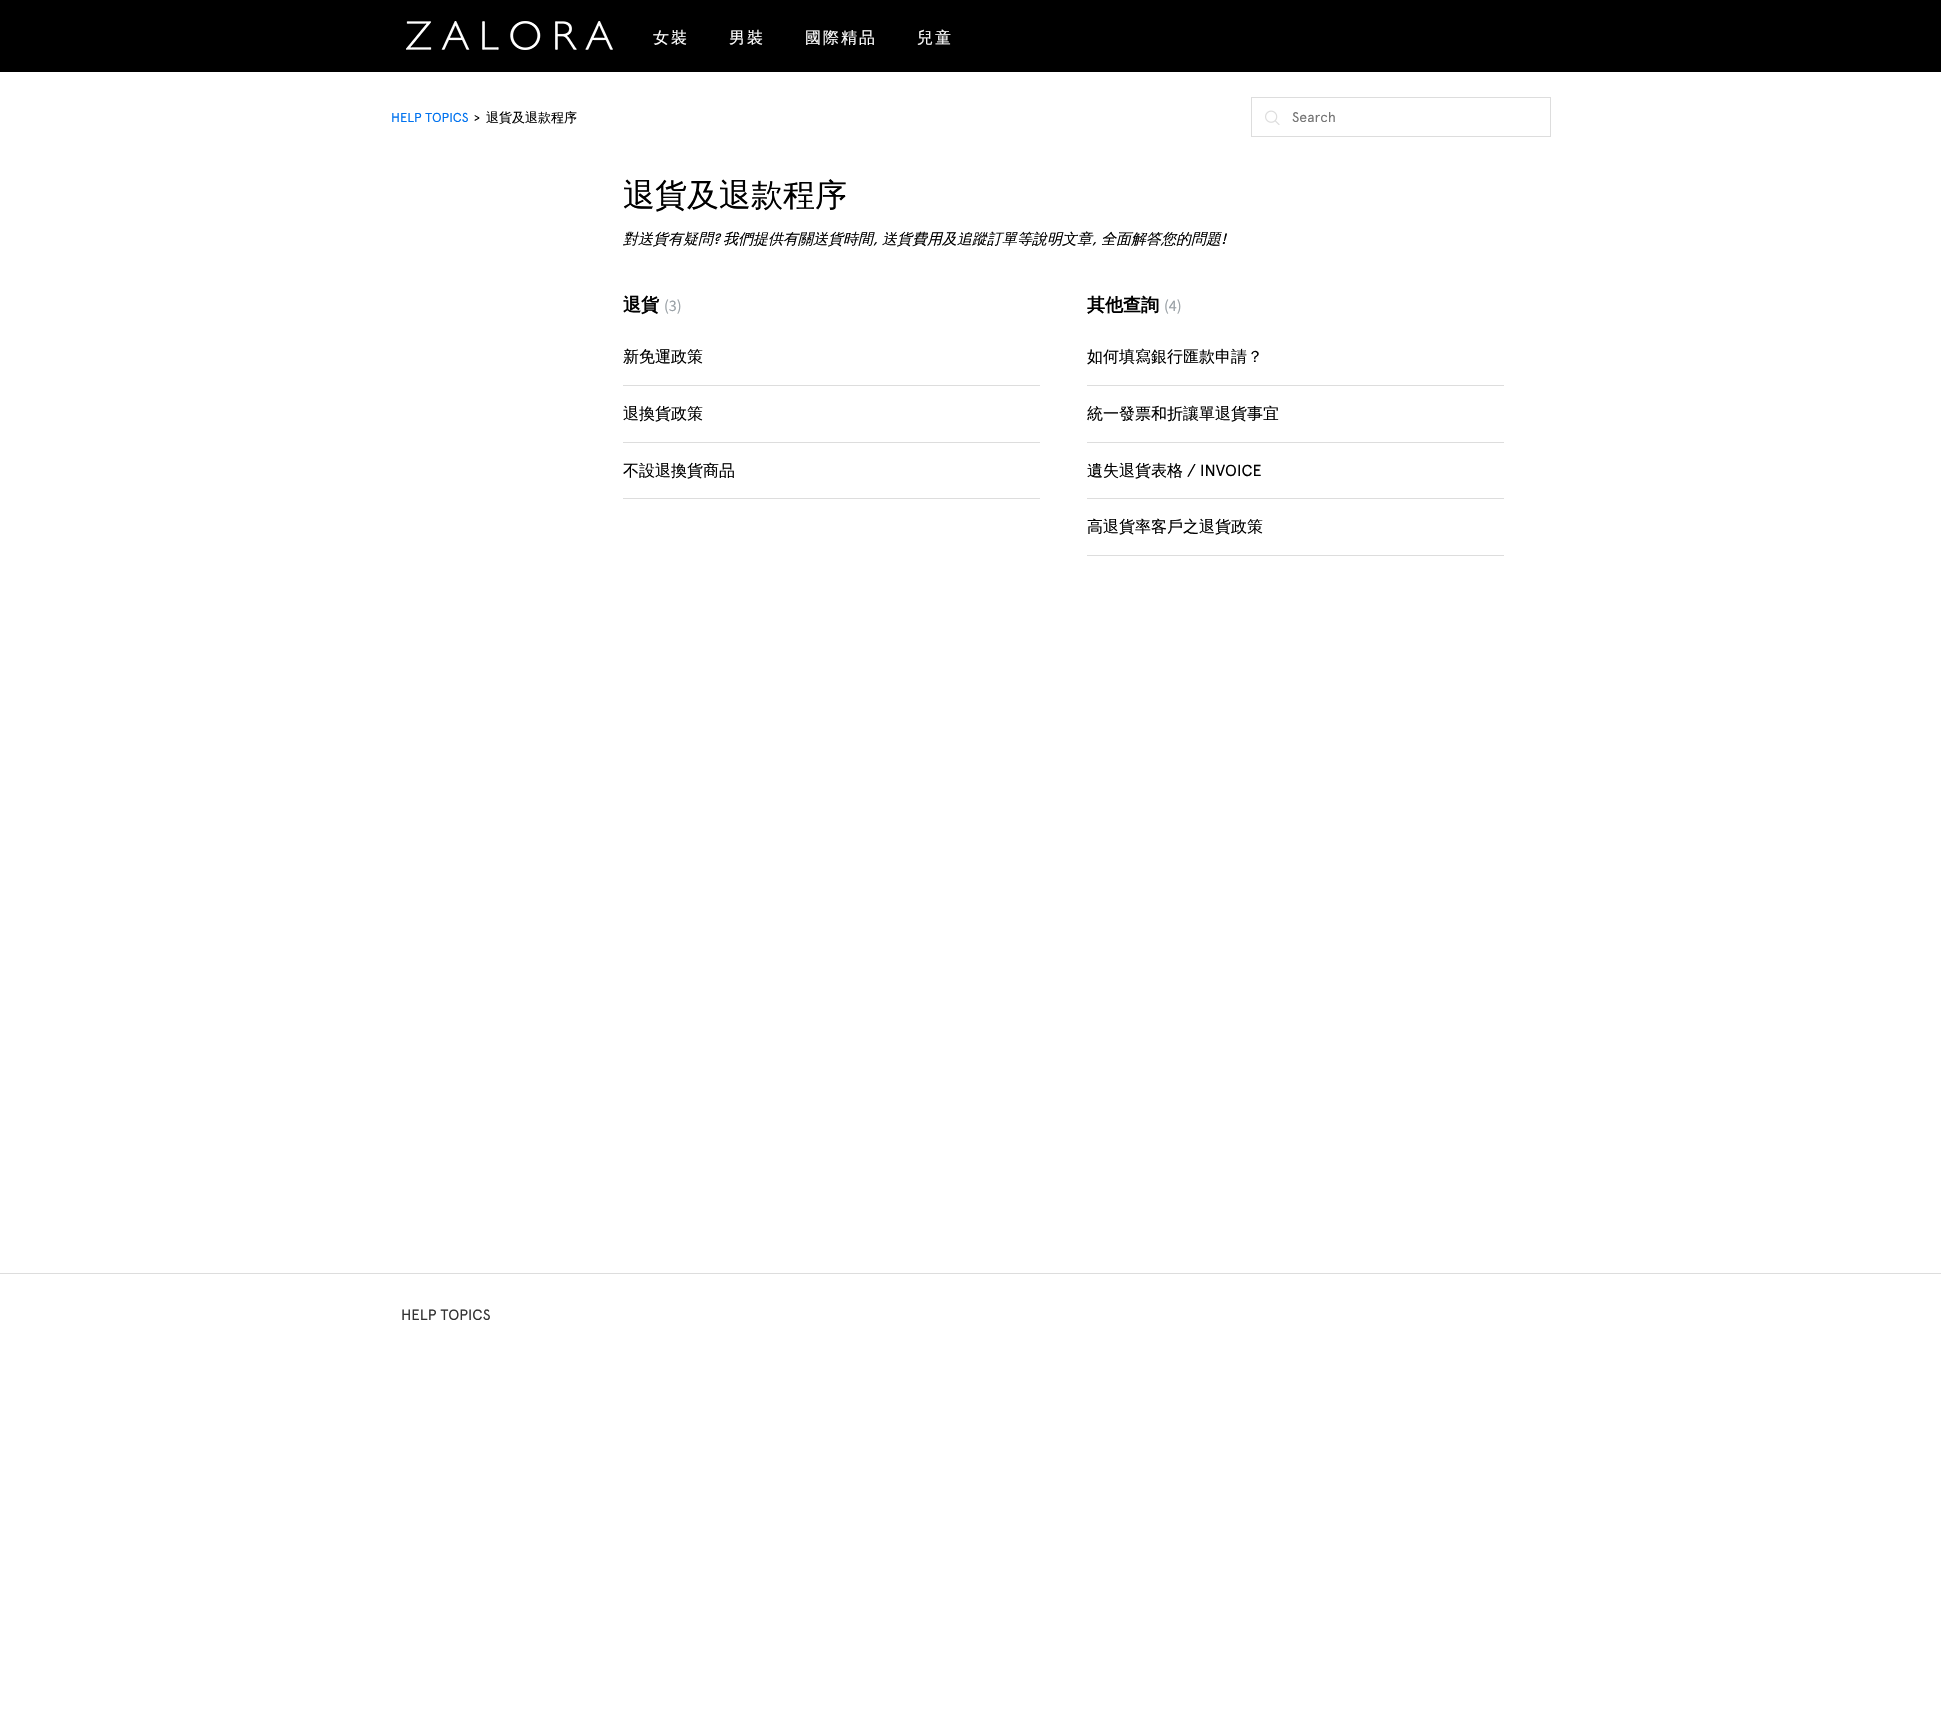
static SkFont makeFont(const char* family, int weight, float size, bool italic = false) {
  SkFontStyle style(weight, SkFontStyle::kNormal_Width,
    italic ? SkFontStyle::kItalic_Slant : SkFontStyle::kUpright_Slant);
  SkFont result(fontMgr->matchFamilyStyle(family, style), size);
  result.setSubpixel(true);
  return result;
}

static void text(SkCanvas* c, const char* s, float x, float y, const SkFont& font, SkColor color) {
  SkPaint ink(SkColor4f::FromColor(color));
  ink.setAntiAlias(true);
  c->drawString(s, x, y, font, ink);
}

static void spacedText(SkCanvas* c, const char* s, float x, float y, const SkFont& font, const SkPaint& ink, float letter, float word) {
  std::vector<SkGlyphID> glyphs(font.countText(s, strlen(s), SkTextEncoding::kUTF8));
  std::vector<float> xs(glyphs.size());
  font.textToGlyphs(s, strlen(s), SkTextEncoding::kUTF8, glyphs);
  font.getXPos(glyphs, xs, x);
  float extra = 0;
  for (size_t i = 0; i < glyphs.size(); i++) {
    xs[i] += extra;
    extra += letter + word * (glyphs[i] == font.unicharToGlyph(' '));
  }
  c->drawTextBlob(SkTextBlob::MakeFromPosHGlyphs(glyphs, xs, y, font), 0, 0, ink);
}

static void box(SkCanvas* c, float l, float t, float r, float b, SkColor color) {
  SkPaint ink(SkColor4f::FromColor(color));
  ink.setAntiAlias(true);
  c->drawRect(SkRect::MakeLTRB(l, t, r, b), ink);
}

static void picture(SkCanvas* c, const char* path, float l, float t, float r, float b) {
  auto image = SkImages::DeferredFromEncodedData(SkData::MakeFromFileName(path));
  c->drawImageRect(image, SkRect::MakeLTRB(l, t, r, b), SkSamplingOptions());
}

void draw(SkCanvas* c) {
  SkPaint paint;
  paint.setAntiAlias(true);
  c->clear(0xffffffff);
  box(c, 0, 0, 1941, 72, 0xff000000);
  picture(c, "img_01.png", 406, 21, 613, 50);
  SkFont face1 = makeFont("WenQuanYi Zen Hei", 500, 16);
  paint.setColor(0xffffffff);
  spacedText(c, "女裝", 653, 43, face1, paint, 2, 0);
  spacedText(c, "男裝", 729, 43, face1, paint, 2, 0);
  spacedText(c, "國際精品", 805, 43, face1, paint, 2, 0);
  spacedText(c, "兒童", 917, 43, face1, paint, 2, 0);
  SkFont face2 = makeFont("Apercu", 400, 13);
  text(c, "HELP TOPICS", 391, 122, face2, 0xff0072ef);
  text(c, ">", 474, 122, face2, 0xff000000);
  SkFont face3 = makeFont("WenQuanYi Zen Hei", 500, 13);
  text(c, "退貨及退款程序", 486, 122, face3, 0xff000000);
  paint.setStyle(SkPaint::kStroke_Style);
  paint.setStrokeWidth(1);
  paint.setColor(0xffdddddd);
  c->drawRect(SkRect::MakeLTRB(1251.5f, 97.5f, 1550.5f, 136.5f), paint);
  picture(c, "img_02.png", 1265, 110, 1280, 125);
  SkFont face4 = makeFont("Apercu", 400, 14);
  text(c, "Search", 1292, 122, face4, 0xff757575);
  SkFont face5 = makeFont("WenQuanYi Zen Hei", 500, 32);
  text(c, "退貨及退款程序", 623, 206, face5, 0xff000000);
  SkFont face6 = makeFont("WenQuanYi Zen Hei", 500, 15, true);
  text(c, "對送貨有疑問", 623, 244, face6, 0xff000000);
  SkFont face7 = makeFont("Apercu", 400, 15, true);
  text(c, "?", 713, 244, face7, 0xff000000);
  text(c, "我們提供有關送貨時間", 723, 244, face6, 0xff000000);
  text(c, ",", 873, 244, face7, 0xff000000);
  text(c, "送貨費用及追蹤訂單等說明文章", 882, 244, face6, 0xff000000);
  text(c, ",", 1092, 244, face7, 0xff000000);
  text(c, "全面解答您的問題", 1101, 244, face6, 0xff000000);
  text(c, "!", 1221, 244, face7, 0xff000000);
  SkFont face8 = makeFont("WenQuanYi Zen Hei", 700, 18);
  text(c, "退貨", 623, 311, face8, 0xff000000);
  SkFont face9 = makeFont("Source Sans Pro", 400, 16);
  text(c, "(3)", 664, 311, face9, 0xff9aa1a6);
  box(c, 623, 385, 1040, 386, 0xffdddddd);
  text(c, "新免運政策", 623, 362, face1, 0xff000000);
  box(c, 623, 442, 1040, 443, 0xffdddddd);
  text(c, "退換貨政策", 623, 419, face1, 0xff000000);
  box(c, 623, 498, 1040, 499, 0xffdddddd);
  text(c, "不設退換貨商品", 623, 476, face1, 0xff000000);
  text(c, "其他查詢", 1087, 311, face8, 0xff000000);
  text(c, "(4)", 1164, 311, face9, 0xff9aa1a6);
  box(c, 1087, 385, 1504, 386, 0xffdddddd);
  text(c, "如何填寫銀行匯款申請？", 1087, 362, face1, 0xff000000);
  box(c, 1087, 442, 1504, 443, 0xffdddddd);
  text(c, "統一發票和折讓單退貨事宜", 1087, 419, face1, 0xff000000);
  box(c, 1087, 498, 1504, 499, 0xffdddddd);
  text(c, "遺失退貨表格", 1087, 476, face1, 0xff000000);
  SkFont face10 = makeFont("Apercu", 400, 16);
  text(c, "/ INVOICE", 1187, 476, face10, 0xff000000);
  box(c, 1087, 555, 1504, 556, 0xffdddddd);
  text(c, "高退貨率客戶之退貨政策", 1087, 532, face1, 0xff000000);
  box(c, 0, 1273, 1941, 1274, 0xffdddddd);
  SkFont face11 = makeFont("Apercu", 400, 15);
  text(c, "HELP TOPICS", 401, 1320, face11, 0xff333333);
}
